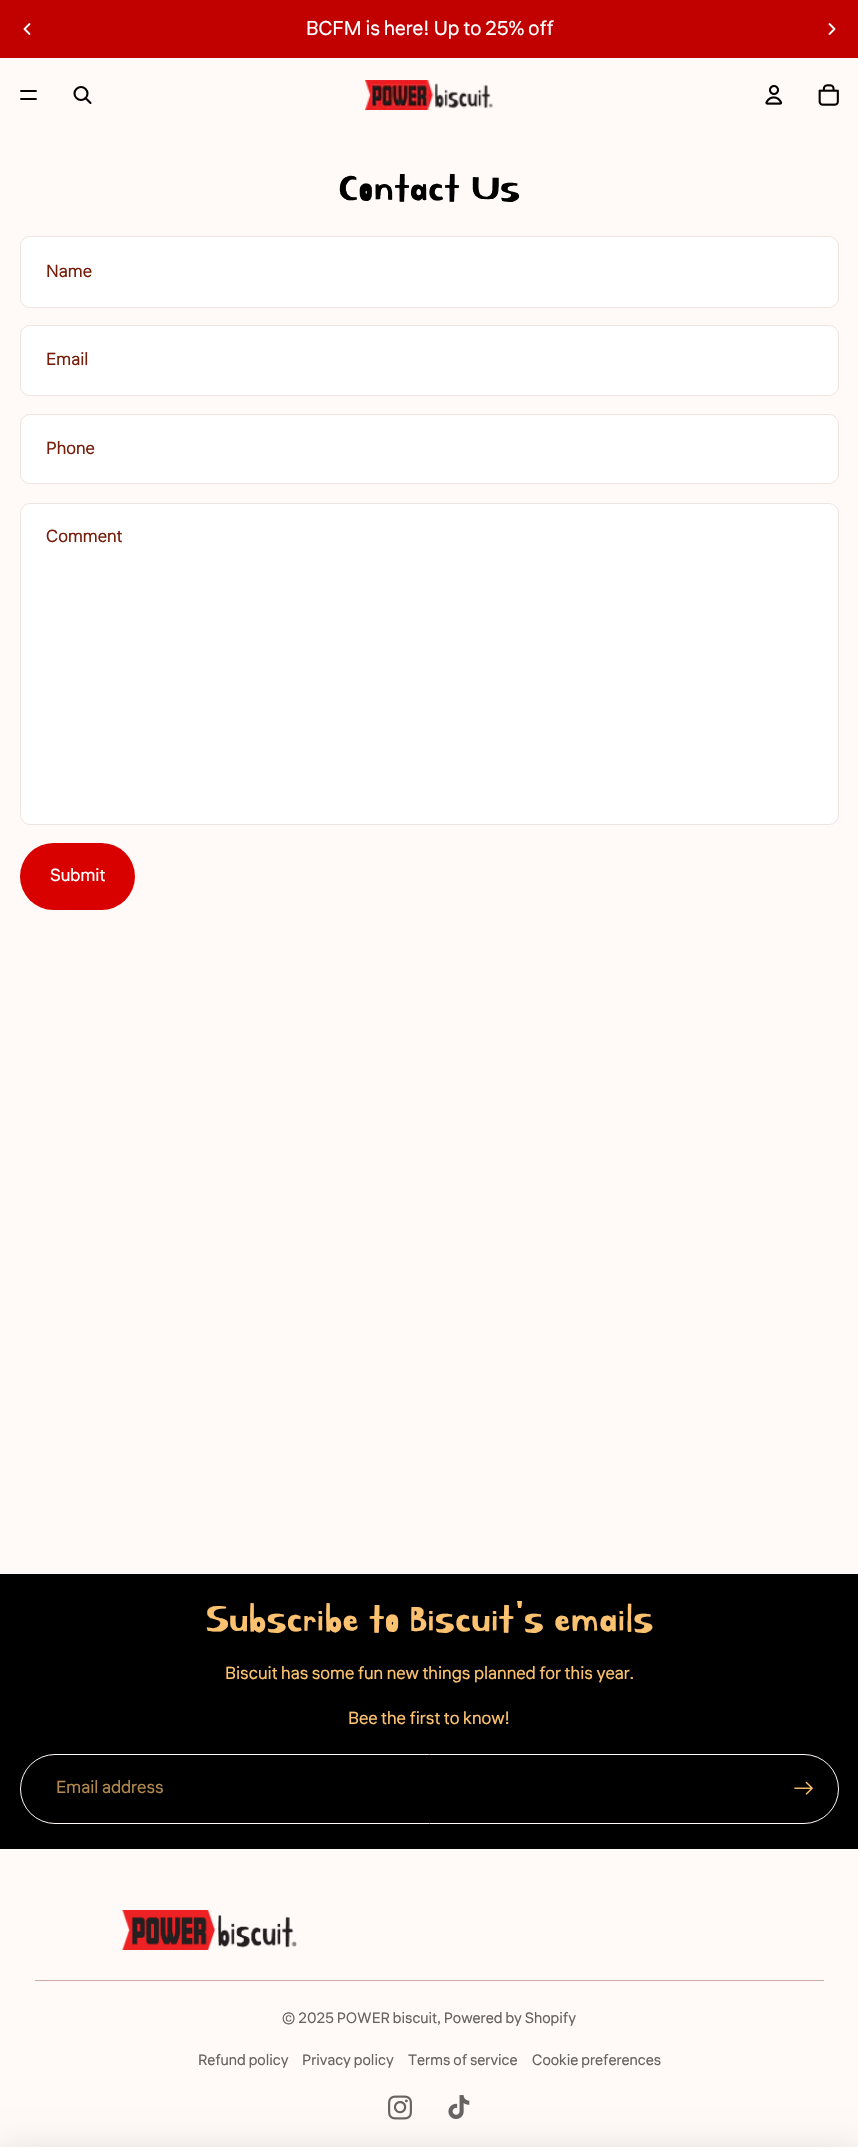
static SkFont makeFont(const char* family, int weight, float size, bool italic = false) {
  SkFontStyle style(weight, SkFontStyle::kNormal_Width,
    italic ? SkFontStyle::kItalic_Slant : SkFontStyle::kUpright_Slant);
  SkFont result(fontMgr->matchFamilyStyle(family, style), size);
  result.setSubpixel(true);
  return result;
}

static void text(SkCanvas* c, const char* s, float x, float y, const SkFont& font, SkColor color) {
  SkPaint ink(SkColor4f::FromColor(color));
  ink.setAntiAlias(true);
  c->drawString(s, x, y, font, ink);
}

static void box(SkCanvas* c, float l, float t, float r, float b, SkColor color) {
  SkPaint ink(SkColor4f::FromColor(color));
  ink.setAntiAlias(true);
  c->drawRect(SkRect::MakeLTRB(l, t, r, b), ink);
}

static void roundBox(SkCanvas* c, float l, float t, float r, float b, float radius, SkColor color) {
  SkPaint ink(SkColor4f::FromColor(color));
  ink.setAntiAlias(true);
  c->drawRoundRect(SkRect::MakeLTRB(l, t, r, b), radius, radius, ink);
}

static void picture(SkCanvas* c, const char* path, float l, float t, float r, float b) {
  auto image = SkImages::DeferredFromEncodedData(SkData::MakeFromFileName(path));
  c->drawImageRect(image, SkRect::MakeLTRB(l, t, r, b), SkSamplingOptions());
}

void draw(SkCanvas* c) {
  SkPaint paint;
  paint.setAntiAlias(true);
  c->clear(0xfffffaf7);
  box(c, 0, 0, 858, 58, 0xffc10000);
  SkFont face1 = makeFont("Liter", 400, 20);
  text(c, "BCFM is here! Up to 25% off", 306, 35, face1, 0xffffffff);
  paint.setStyle(SkPaint::kStroke_Style);
  paint.setStrokeWidth(1.8f);
  paint.setStrokeCap(SkPaint::kRound_Cap);
  paint.setStrokeJoin(SkPaint::kRound_Join);
  paint.setColor(0xffffffff);
  c->drawPath(SkPathBuilder().moveTo(29.5f, 24).lineTo(24.5f, 29).lineTo(29.5f, 34).detach(), paint);
  c->drawPath(SkPathBuilder().moveTo(829.5f, 24).lineTo(834.5f, 29).lineTo(829.5f, 34).detach(), paint);
  paint.setStrokeJoin(SkPaint::kMiter_Join);
  paint.setColor(0xff000000);
  c->drawPath(SkPathBuilder().moveTo(21, 91).lineTo(36, 91).moveTo(21, 99).lineTo(36, 99).detach(), paint);
  paint.setStrokeWidth(2.1f);
  paint.setStrokeCap(SkPaint::kButt_Cap);
  c->drawCircle(81, 93.5f, 6.5f, paint);
  paint.setStrokeCap(SkPaint::kRound_Cap);
  paint.setStrokeJoin(SkPaint::kRound_Join);
  c->drawPath(SkPathBuilder().moveTo(86, 98.5f).lineTo(90.5f, 103).detach(), paint);
  picture(c, "img_01.png", 365, 80, 493, 110);
  picture(c, "img_02.png", 765, 85, 783, 105);
  picture(c, "img_03.png", 818, 84, 839, 106);
  SkFont face2 = makeFont("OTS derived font", 400, 41.25f);
  text(c, "Contact Us", 339, 199, face2, 0xff000000);
  roundBox(c, 20, 236, 839, 308, 10, 0xffffffff);
  paint.setStrokeWidth(1);
  paint.setStrokeCap(SkPaint::kButt_Cap);
  paint.setStrokeJoin(SkPaint::kMiter_Join);
  paint.setColor(0x1f761e0b);
  c->drawRoundRect(SkRect::MakeLTRB(20.5f, 236.5f, 838.5f, 307.5f), 9.5f, 9.5f, paint);
  SkFont face3 = makeFont("Liter", 400, 17.5f);
  text(c, "Name", 46, 277, face3, 0xff761e0b);
  roundBox(c, 20, 325, 839, 396, 10, 0xffffffff);
  c->drawRoundRect(SkRect::MakeLTRB(20.5f, 325.5f, 838.5f, 395.5f), 9.5f, 9.5f, paint);
  text(c, "Email", 46, 365, face3, 0xff761e0b);
  roundBox(c, 20, 414, 839, 484, 10, 0xffffffff);
  c->drawRoundRect(SkRect::MakeLTRB(20.5f, 414.5f, 838.5f, 483.5f), 9.5f, 9.5f, paint);
  text(c, "Phone", 46, 454, face3, 0xff761e0b);
  roundBox(c, 20, 503, 839, 825, 10, 0xffffffff);
  c->drawRoundRect(SkRect::MakeLTRB(20.5f, 503.5f, 838.5f, 824.5f), 9.5f, 9.5f, paint);
  text(c, "Comment", 46, 542, face3, 0xff761e0b);
  roundBox(c, 20, 843, 135, 910, 33.5f, 0xffd90000);
  text(c, "Submit", 50, 881, face3, 0xffffffff);
  box(c, 0, 1574, 858, 1849, 0xff000000);
  text(c, "Subscribe to Biscuit's emails", 206, 1630, face2, 0xfffdc26f);
  text(c, "Biscuit has some fun new things planned for this year.", 225, 1679, face3, 0xfffdc26f);
  text(c, "Bee the first to know!", 348, 1724, face3, 0xfffdc26f);
  paint.setColor(0xfffffaf7);
  c->drawRoundRect(SkRect::MakeLTRB(20.5f, 1754.5f, 838.5f, 1823.5f), 34.5f, 34.5f, paint);
  text(c, "Email address", 56, 1793, face3, 0xffb1884e);
  picture(c, "img_04.png", 794, 1781, 813, 1795);
  picture(c, "img_05.png", 122, 1910, 297, 1950);
  box(c, 35, 1980, 824, 1981, 0xffcfada4);
  SkFont face4 = makeFont("Liter", 400, 15);
  text(c, "© 2025 POWER biscuit, Powered by Shopify", 282, 2023, face4, 0xff666463);
  text(c, "Refund policy", 198, 2065, face4, 0xff666463);
  text(c, "Privacy policy", 302, 2065, face4, 0xff666463);
  text(c, "Terms of service", 408, 2065, face4, 0xff666463);
  text(c, "Cookie preferences", 532, 2065, face4, 0xff666463);
  picture(c, "img_06.png", 388, 2095, 412, 2120);
  picture(c, "img_07.png", 448, 2095, 470, 2119);
  paint.setStyle(SkPaint::kFill_Style);
  paint.setColor(0x26000000);
  paint.setMaskFilter(SkMaskFilter::MakeBlur(kNormal_SkBlurStyle, 19));
  c->drawRect(SkRect::MakeLTRB(0, 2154, 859, 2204), paint);
  paint.setMaskFilter(nullptr);
}
